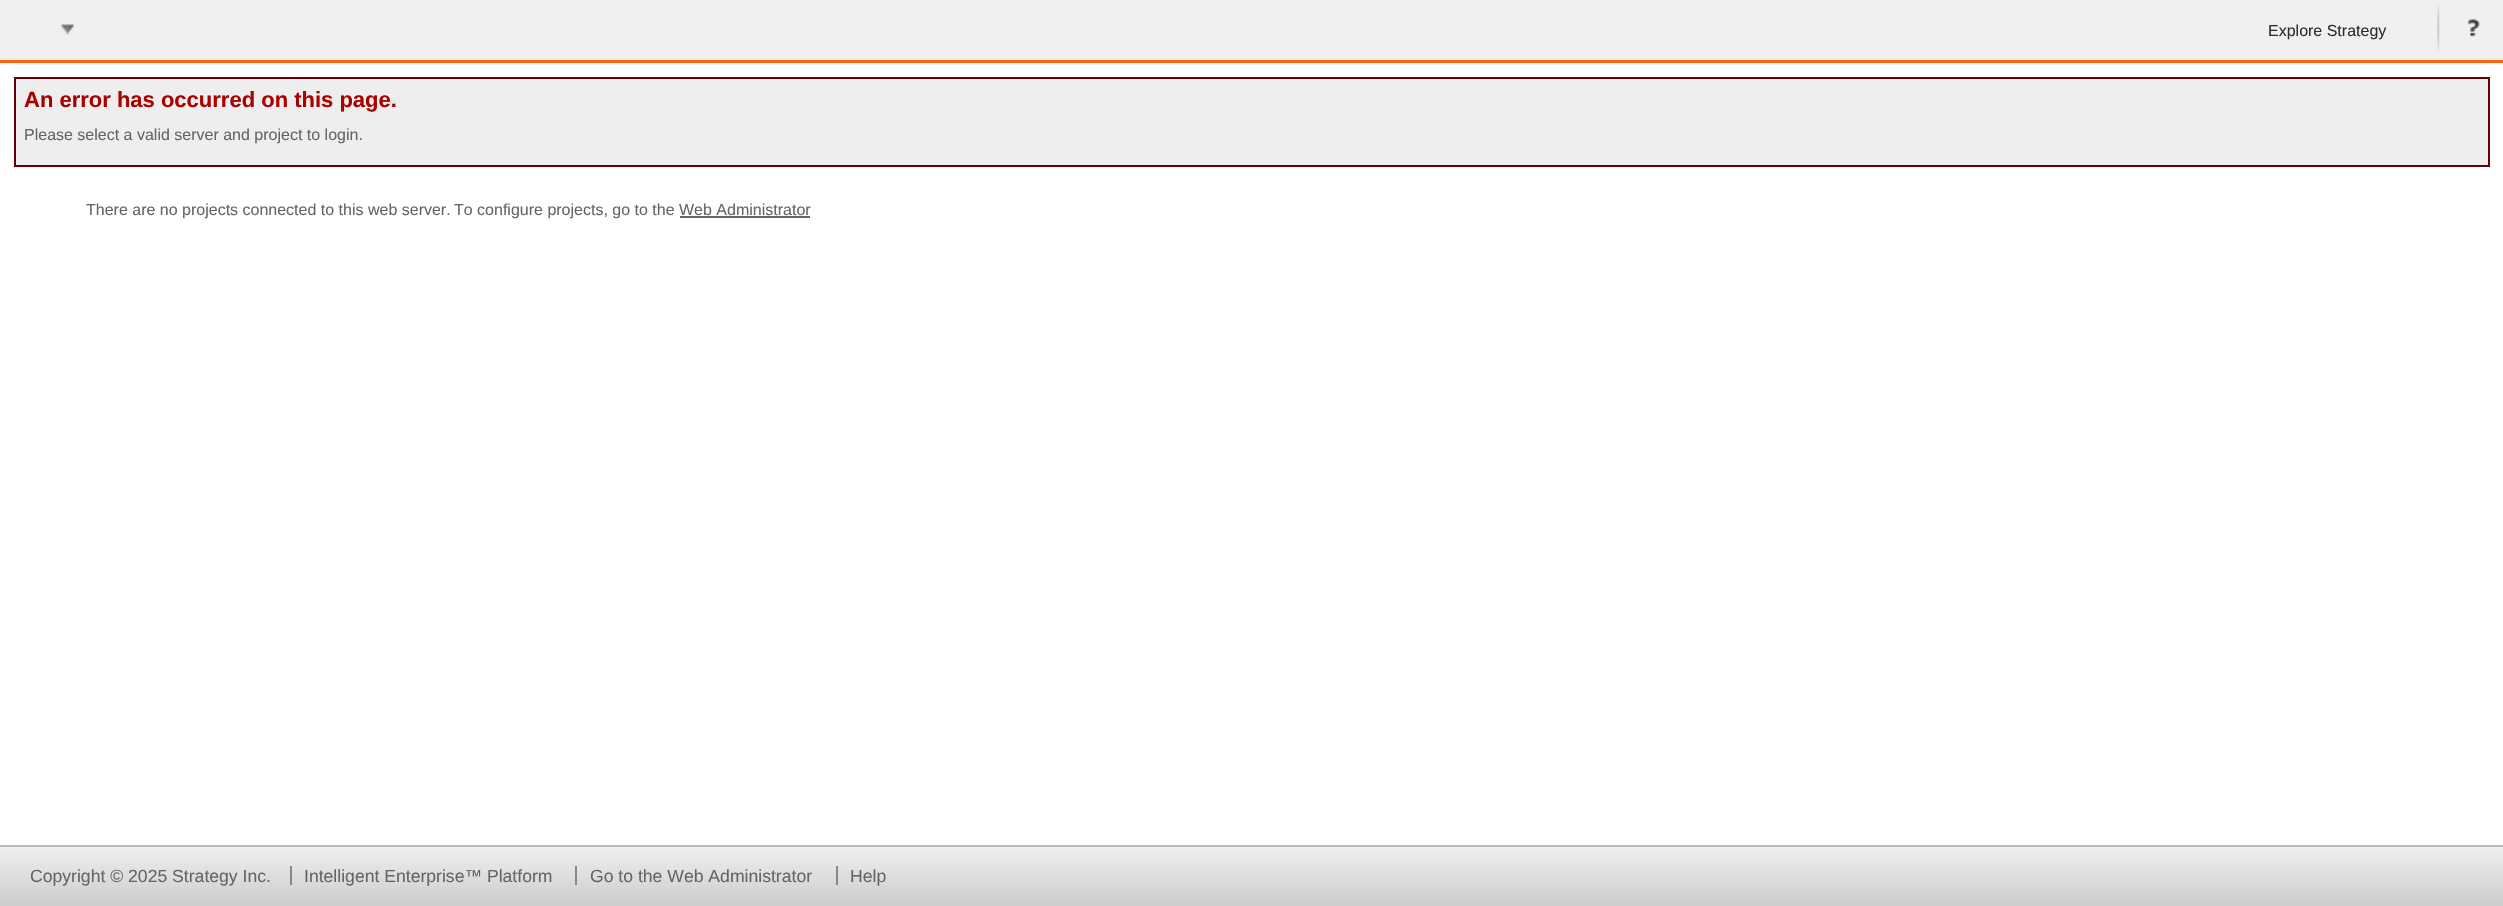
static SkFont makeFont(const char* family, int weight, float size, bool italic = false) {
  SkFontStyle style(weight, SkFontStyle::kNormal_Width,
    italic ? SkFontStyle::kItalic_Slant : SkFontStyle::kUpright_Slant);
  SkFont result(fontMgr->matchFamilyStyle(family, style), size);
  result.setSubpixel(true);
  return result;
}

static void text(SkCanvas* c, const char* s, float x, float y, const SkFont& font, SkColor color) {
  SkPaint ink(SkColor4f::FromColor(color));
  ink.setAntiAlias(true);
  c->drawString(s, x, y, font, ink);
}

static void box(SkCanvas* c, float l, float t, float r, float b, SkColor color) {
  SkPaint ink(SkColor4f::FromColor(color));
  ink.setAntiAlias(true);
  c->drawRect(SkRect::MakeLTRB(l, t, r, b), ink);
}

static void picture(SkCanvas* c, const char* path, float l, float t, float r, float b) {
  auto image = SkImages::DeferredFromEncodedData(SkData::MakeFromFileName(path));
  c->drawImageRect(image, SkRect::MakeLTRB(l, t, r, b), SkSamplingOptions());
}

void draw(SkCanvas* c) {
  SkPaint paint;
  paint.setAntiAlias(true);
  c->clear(0xffffffff);
  box(c, 0, 0, 2503, 60, 0xfff0f0f0);
  box(c, 0, 60, 2503, 63, 0xfffa660f);
  picture(c, "img_01.png", 61, 24, 74, 35);
  SkFont face1 = makeFont("Liberation Sans", 400, 16);
  text(c, "Explore Strategy", 2268, 36, face1, 0xff2d2d2d);
  picture(c, "img_02.png", 2437, 4, 2480, 51);
  paint.setColor(0xffeeeeee);
  c->drawRect(SkRect::MakeLTRB(15, 78, 2489, 166), paint);
  paint.setStyle(SkPaint::kStroke_Style);
  paint.setStrokeWidth(2);
  paint.setColor(0xff660000);
  c->drawRect(SkRect::MakeLTRB(15, 78, 2489, 166), paint);
  SkFont face2 = makeFont("Liberation Sans", 700, 22);
  text(c, "An error has occurred on this page.", 24, 107, face2, 0xffaa0000);
  text(c, "Please select a valid server and project to login.", 24, 140, face1, 0xff656565);
  text(c, "There are no projects connected to this web server.", 86, 215, face1, 0xff656565);
  text(c, "To configure projects, go to the Web Administrator", 454, 215, face1, 0xff656565);
  box(c, 680, 216, 810, 218, 0xff656565);
  paint.setStyle(SkPaint::kFill_Style);
  {
    const SkColor colors[] = {0xfff0f0f0, 0xffcdcdcd};
    const float stops[] = {0, 1};
    const SkPoint ends[] = {{1252, 844}, {1252, 906}};
    paint.setShader(SkGradientShader::MakeLinear(ends, colors, stops, 2, SkTileMode::kClamp));
    paint.setAlpha(255);
  }
  c->drawRect(SkRect::MakeLTRB(0, 847, 2503, 906), paint);
  box(c, 0, 845, 2503, 847, 0xffbcbcbc);
  SkFont face3 = makeFont("Liberation Sans", 400, 17.6f);
  text(c, "Copyright © 2025 Strategy Inc.", 30, 882, face3, 0xff656565);
  text(c, "Intelligent Enterprise™ Platform", 304, 882, face3, 0xff656565);
  box(c, 290, 866, 292, 885, 0xff888888);
  text(c, "Go to the Web Administrator", 590, 882, face3, 0xff656565);
  box(c, 575, 866, 577, 885, 0xff888888);
  text(c, "Help", 850, 882, face3, 0xff656565);
  box(c, 836, 866, 838, 885, 0xff888888);
}
